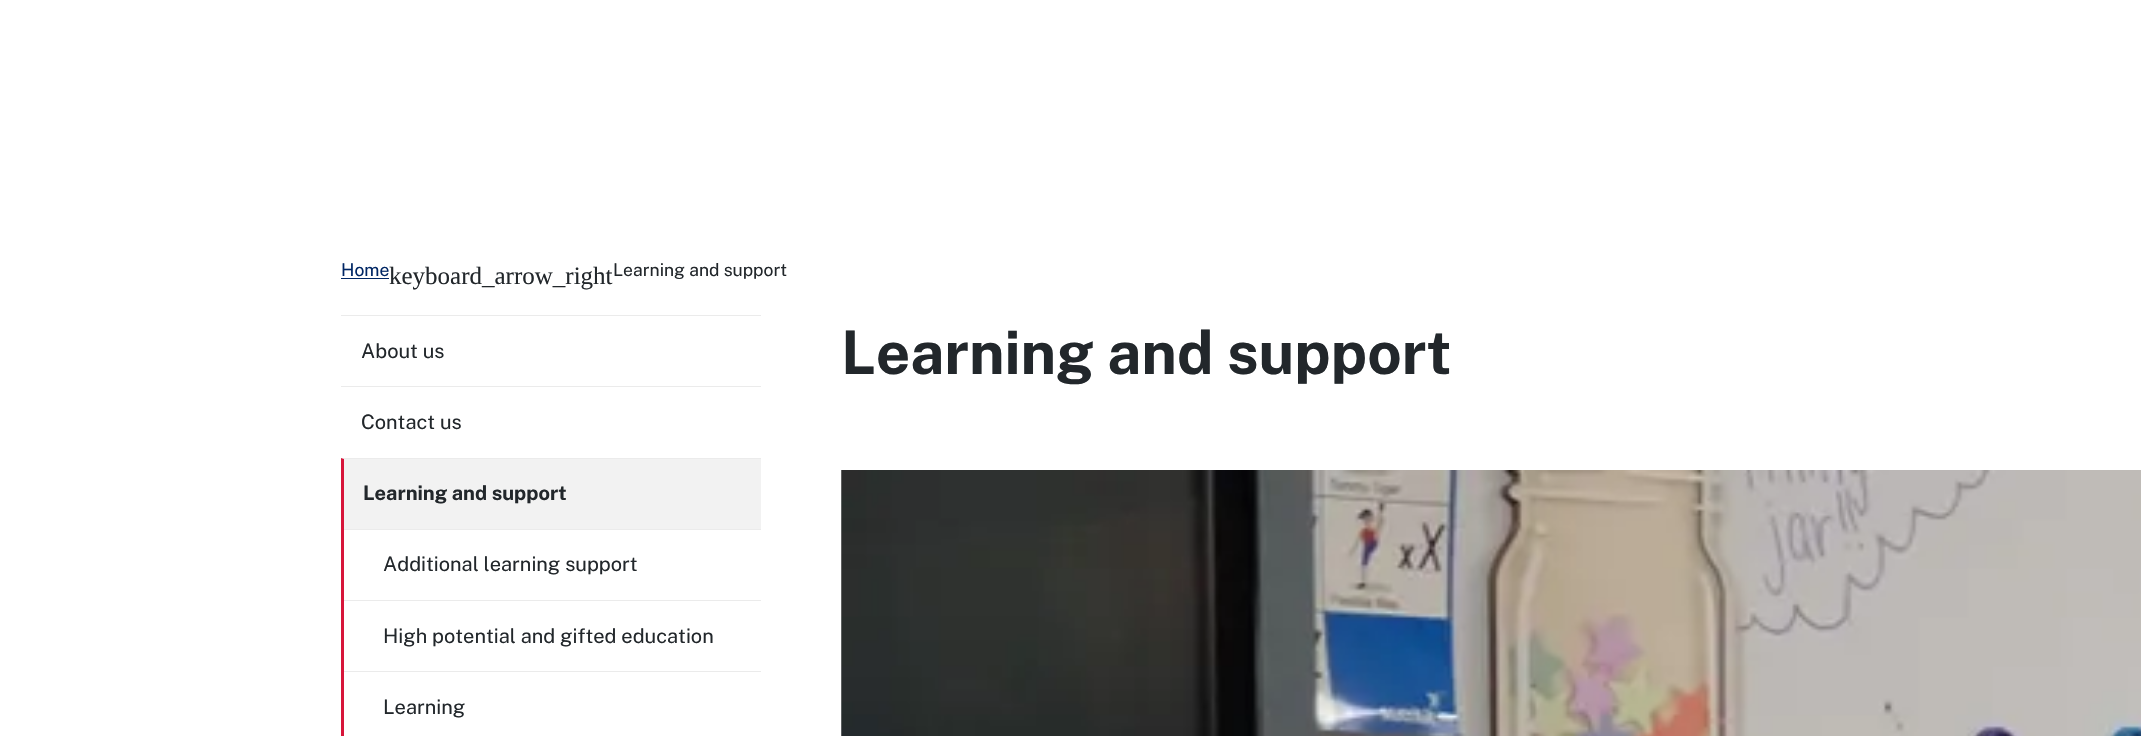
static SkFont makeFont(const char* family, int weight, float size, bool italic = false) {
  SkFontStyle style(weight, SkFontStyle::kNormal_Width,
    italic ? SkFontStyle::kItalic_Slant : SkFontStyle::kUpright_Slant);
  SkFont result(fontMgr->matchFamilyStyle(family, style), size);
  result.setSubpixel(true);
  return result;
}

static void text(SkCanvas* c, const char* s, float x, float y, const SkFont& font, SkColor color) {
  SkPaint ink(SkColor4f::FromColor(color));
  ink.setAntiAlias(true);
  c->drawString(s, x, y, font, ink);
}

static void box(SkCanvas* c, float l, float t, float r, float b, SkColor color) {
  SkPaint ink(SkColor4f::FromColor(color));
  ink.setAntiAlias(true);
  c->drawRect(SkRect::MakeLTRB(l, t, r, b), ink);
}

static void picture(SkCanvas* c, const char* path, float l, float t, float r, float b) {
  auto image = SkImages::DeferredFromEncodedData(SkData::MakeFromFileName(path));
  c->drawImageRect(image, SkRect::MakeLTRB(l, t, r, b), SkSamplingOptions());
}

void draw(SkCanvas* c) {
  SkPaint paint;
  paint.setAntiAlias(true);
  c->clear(0xffffffff);
  SkFont face1 = makeFont("Public Sans", 400, 17.5f);
  text(c, "Home", 341, 276, face1, 0xff002664);
  box(c, 341, 278, 389, 279, 0xff002664);
  SkFont face2 = makeFont("Liberation Serif", 400, 25);
  text(c, "keyboard_arrow_right", 389, 284, face2, 0xff22272b);
  text(c, "Learning and support", 613, 276, face1, 0xff22272b);
  box(c, 341, 315, 761, 316, 0xffebebeb);
  SkFont face3 = makeFont("Public Sans", 400, 20);
  text(c, "About us", 361, 358, face3, 0xff22272b);
  box(c, 341, 386, 761, 387, 0xffebebeb);
  text(c, "Contact us", 361, 429, face3, 0xff22272b);
  paint.setColor(0xffebebeb);
  c->drawPath(SkPathBuilder().moveTo(341, 458).lineTo(761, 458).lineTo(761, 459).lineTo(344, 459).close().detach(), paint);
  paint.setColor(0xffd7153a);
  c->drawPath(SkPathBuilder().moveTo(341, 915).lineTo(341, 458).lineTo(344, 459).lineTo(344, 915).close().detach(), paint);
  box(c, 344, 459, 761, 529, 0xfff2f2f2);
  SkFont face4 = makeFont("Public Sans", 700, 20);
  text(c, "Learning and support", 363, 500, face4, 0xff22272b);
  box(c, 344, 529, 761, 530, 0xffebebeb);
  text(c, "Additional learning support", 383, 571, face3, 0xff22272b);
  box(c, 344, 600, 761, 601, 0xffebebeb);
  text(c, "High potential and gifted education", 383, 643, face3, 0xff22272b);
  box(c, 344, 671, 761, 672, 0xffebebeb);
  text(c, "Learning", 383, 714, face3, 0xff22272b);
  SkFont face5 = makeFont("Public Sans", 700, 60);
  text(c, "Learning and support", 841, 374, face5, 0xff22272b);
  picture(c, "img_01.png", 841, 470, 2141, 736);
}
